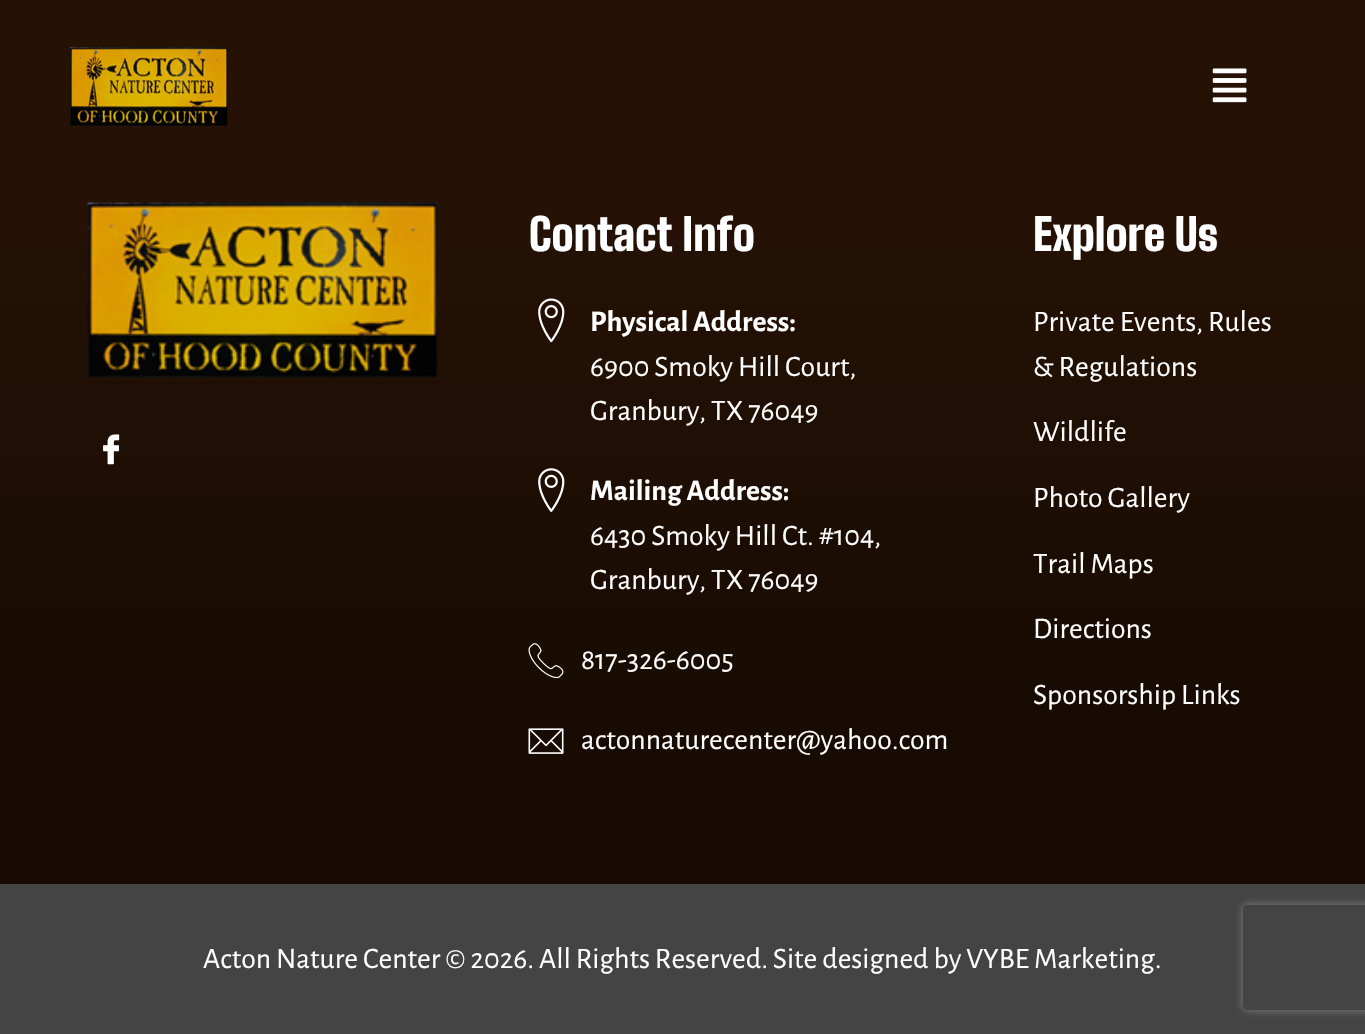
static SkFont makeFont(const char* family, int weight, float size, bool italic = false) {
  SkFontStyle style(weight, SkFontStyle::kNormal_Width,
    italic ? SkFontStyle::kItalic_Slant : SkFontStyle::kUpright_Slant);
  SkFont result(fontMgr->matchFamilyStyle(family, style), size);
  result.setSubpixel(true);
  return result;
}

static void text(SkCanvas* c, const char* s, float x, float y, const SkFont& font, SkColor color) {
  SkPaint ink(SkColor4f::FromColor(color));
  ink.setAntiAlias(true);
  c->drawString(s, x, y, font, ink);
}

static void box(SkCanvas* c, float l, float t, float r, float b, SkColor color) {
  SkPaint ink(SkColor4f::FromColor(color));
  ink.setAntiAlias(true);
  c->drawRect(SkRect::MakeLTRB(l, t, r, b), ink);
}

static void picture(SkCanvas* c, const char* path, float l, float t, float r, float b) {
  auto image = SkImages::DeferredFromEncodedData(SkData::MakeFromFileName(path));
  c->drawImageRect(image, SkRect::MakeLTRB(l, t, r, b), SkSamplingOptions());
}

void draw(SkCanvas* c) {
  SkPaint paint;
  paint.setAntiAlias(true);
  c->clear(0xffffffff);
  box(c, 0, 0, 1365, 172, 0xff261205);
  picture(c, "img_01.png", 70, 47, 228, 126);
  picture(c, "img_02.png", 1212, 68, 1247, 103);
  {
    const SkColor colors[] = {0xff261205, 0xff170b03};
    const float stops[] = {0.19f, 0.81f};
    const SkPoint ends[] = {{682, 28}, {683, 884}};
    paint.setShader(SkGradientShader::MakeLinear(ends, colors, stops, 2, SkTileMode::kClamp));
    paint.setAlpha(255);
  }
  c->drawRect(SkRect::MakeLTRB(0, 172, 1365, 884), paint);
  picture(c, "img_03.png", 87, 202, 438, 378);
  picture(c, "img_04.png", 103, 434, 120, 465);
  SkFont face1 = makeFont("Big Shoulders Text", 900, 43.75f);
  text(c, "Contact Info", 529, 251, face1, 0xffffffff);
  picture(c, "img_05.png", 538, 298, 565, 343);
  SkFont face2 = makeFont("Alegreya Sans", 700, 29.75f);
  text(c, "Physical Address:", 590, 331, face2, 0xffffffff);
  SkFont face3 = makeFont("Alegreya Sans", 400, 29.75f);
  text(c, "6900 Smoky Hill Court,", 590, 376, face3, 0xffffffff);
  text(c, "Granbury, TX 76049", 590, 420, face3, 0xffffffff);
  picture(c, "img_06.png", 538, 468, 565, 512);
  text(c, "Mailing Address:", 590, 500, face2, 0xffffffff);
  text(c, "6430 Smoky Hill Ct. #104,", 590, 545, face3, 0xffffffff);
  text(c, "Granbury, TX 76049", 590, 589, face3, 0xffffffff);
  picture(c, "img_07.png", 528, 643, 564, 679);
  text(c, "817-326-6005", 581, 669, face3, 0xffffffff);
  picture(c, "img_08.png", 528, 728, 564, 754);
  text(c, "actonnaturecenter@yahoo.com", 581, 749, face3, 0xffffffff);
  text(c, "Explore Us", 1033, 251, face1, 0xffffffff);
  text(c, "Private Events, Rules", 1033, 331, face3, 0xffffffff);
  text(c, "& Regulations", 1033, 376, face3, 0xffffffff);
  text(c, "Wildlife", 1033, 441, face3, 0xffffffff);
  text(c, "Photo Gallery", 1033, 507, face3, 0xffffffff);
  text(c, "Trail Maps", 1033, 573, face3, 0xffffffff);
  text(c, "Directions", 1033, 638, face3, 0xffffffff);
  text(c, "Sponsorship Links", 1033, 704, face3, 0xffffffff);
  box(c, 0, 884, 1365, 1034, 0xff444444);
  text(c, "Acton Nature Center © 2026. All Rights Reserved. Site designed by VYBE Marketing.", 203, 968, face3, 0xffffffff);
  c->save();
  c->clipPath(SkPathBuilder(SkPathFillType::kEvenOdd).moveTo(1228, 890).lineTo(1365, 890).lineTo(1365, 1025).lineTo(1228, 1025).close().moveTo(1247, 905).lineTo(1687, 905).cubicTo(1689, 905, 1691, 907, 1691, 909).lineTo(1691, 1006).cubicTo(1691, 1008, 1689, 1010, 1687, 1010).lineTo(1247, 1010).cubicTo(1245, 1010, 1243, 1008, 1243, 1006).lineTo(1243, 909).cubicTo(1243, 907, 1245, 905, 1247, 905).close().detach(), true);
  paint.setShader(nullptr);
  paint.setColor(0xff808080);
  paint.setMaskFilter(SkMaskFilter::MakeBlur(kNormal_SkBlurStyle, 4.5f));
  c->drawRoundRect(SkRect::MakeLTRB(1243, 905, 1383, 1010), 4, 4, paint);
  paint.setMaskFilter(nullptr);
  c->restore();
}
